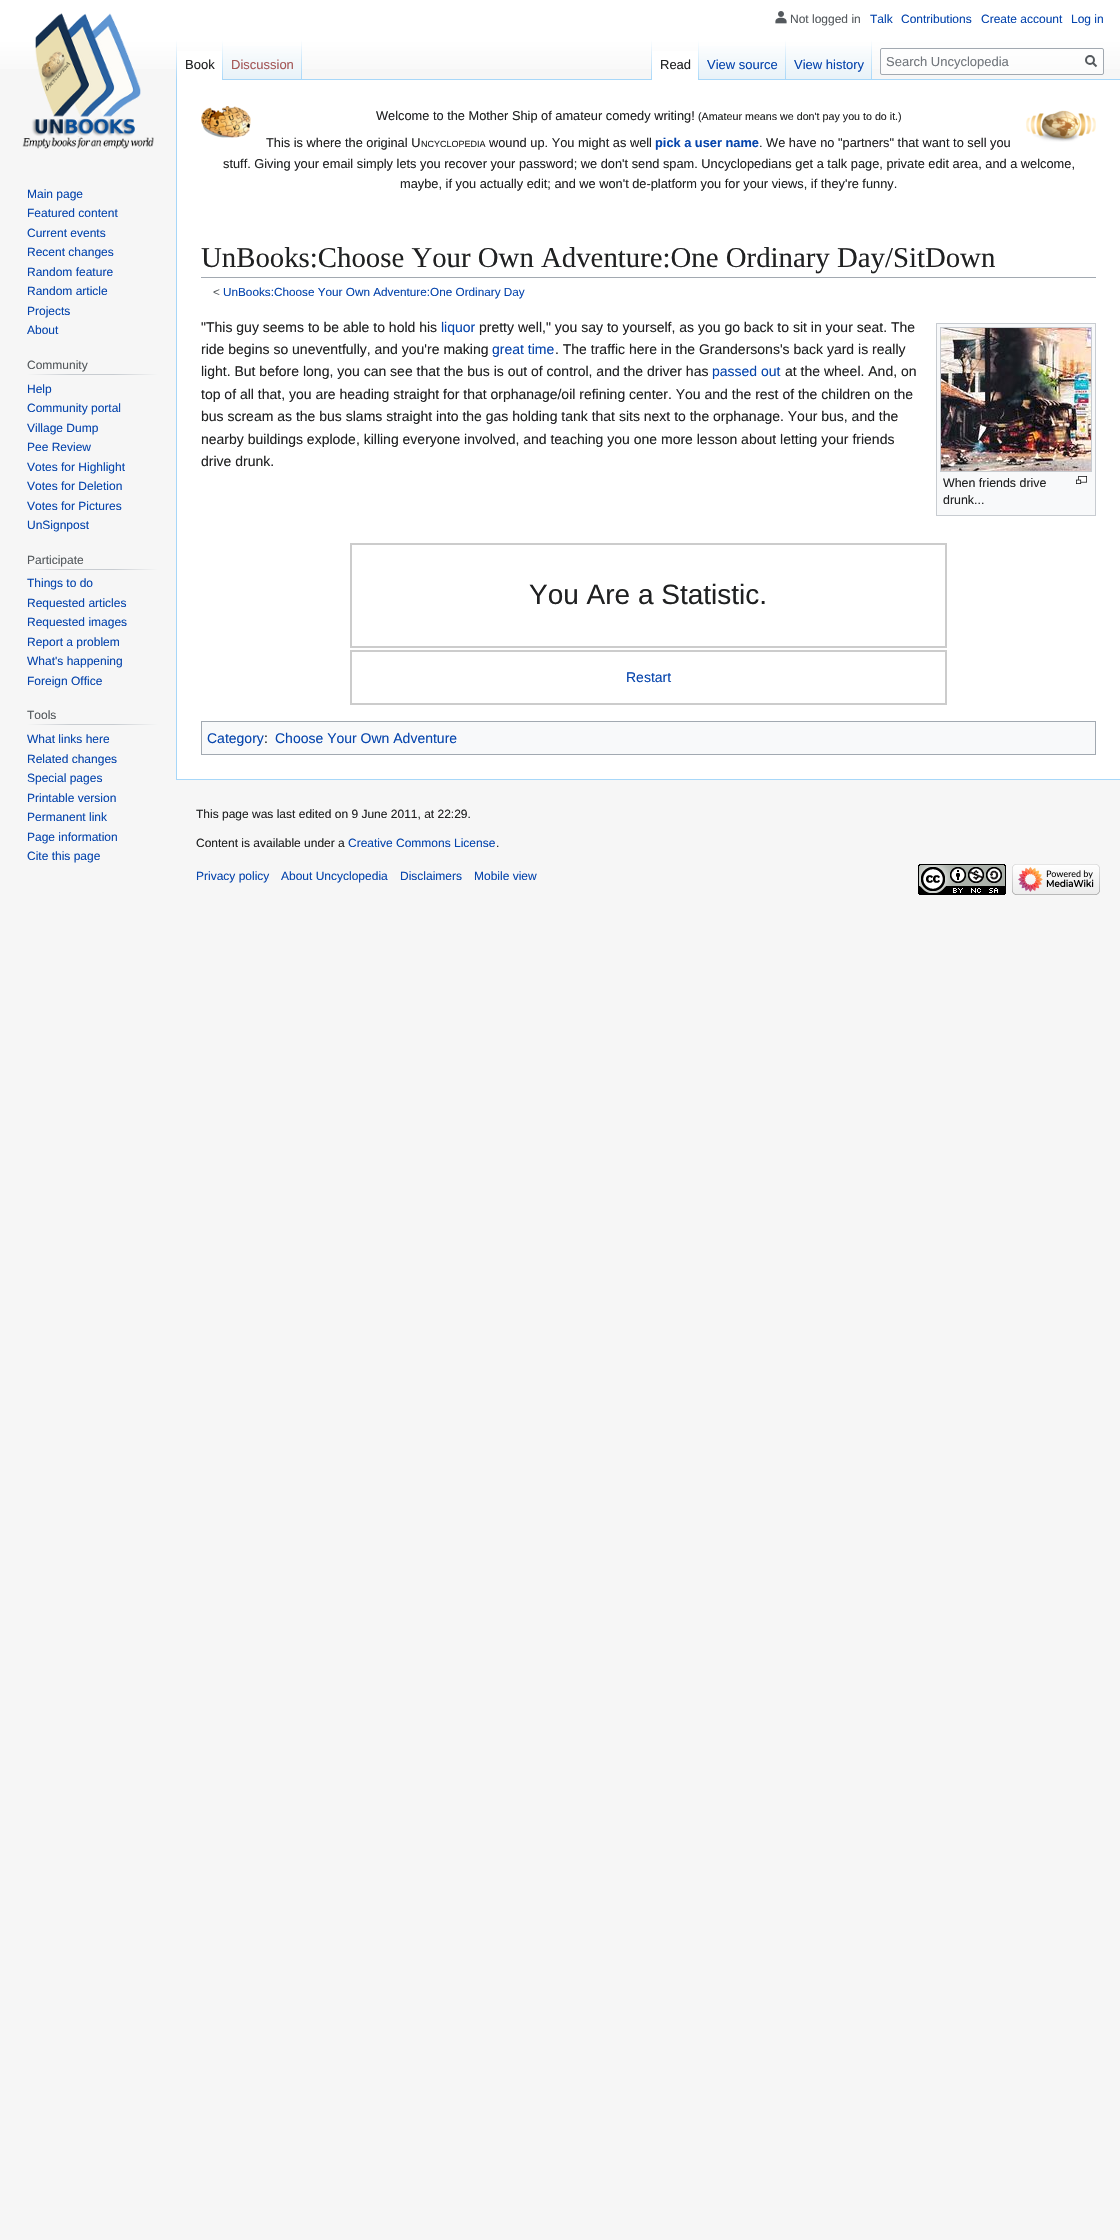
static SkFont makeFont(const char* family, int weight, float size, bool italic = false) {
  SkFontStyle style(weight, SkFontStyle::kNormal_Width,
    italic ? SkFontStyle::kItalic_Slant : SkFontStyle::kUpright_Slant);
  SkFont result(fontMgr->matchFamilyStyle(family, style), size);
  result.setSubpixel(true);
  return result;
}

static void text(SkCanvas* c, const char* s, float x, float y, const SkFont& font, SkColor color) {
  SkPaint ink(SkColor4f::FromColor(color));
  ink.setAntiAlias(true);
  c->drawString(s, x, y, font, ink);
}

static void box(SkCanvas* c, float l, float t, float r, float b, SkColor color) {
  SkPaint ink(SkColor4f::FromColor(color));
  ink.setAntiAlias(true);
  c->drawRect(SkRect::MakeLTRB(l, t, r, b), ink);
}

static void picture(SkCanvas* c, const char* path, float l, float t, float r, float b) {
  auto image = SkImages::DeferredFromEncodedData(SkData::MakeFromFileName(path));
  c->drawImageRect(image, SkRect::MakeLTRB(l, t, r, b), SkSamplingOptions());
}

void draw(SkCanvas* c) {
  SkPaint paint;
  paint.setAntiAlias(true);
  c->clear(0xfff6f6f6);
  {
    const SkColor colors[] = {0xffffffff, 0xfff6f6f6};
    const float stops[] = {0.5f, 1};
    const SkPoint ends[] = {{560, 0}, {560, 80}};
    paint.setShader(SkGradientShader::MakeLinear(ends, colors, stops, 2, SkTileMode::kClamp));
    paint.setAlpha(255);
  }
  c->drawRect(SkRect::MakeLTRB(0, 0, 1120, 69), paint);
  picture(c, "img_01.png", 775, 11, 787, 24);
  SkFont face1 = makeFont("Liberation Sans", 400, 12);
  text(c, "Not logged in", 790, 23, face1, 0xff54595d);
  text(c, "Talk", 870, 23, face1, 0xff0645ad);
  text(c, "Contributions", 901, 23, face1, 0xff0645ad);
  text(c, "Create account", 981, 23, face1, 0xff0645ad);
  text(c, "Log in", 1071, 23, face1, 0xff0645ad);
  box(c, 176, 779, 1120, 780, 0xffa7d7f9);
  box(c, 176, 79, 177, 780, 0xffa7d7f9);
  {
    const SkColor colors[] = {0x00a7d7f9, 0xffa7d7f9};
    const float stops[] = {0, 1};
    const SkPoint ends[] = {{177, 40}, {177, 80}};
    paint.setShader(SkGradientShader::MakeLinear(ends, colors, stops, 2, SkTileMode::kClamp));
    paint.setAlpha(255);
  }
  c->drawRect(SkRect::MakeLTRB(176, 40, 177, 80), paint);
  box(c, 177, 51, 222, 80, 0xffffffff);
  {
    const SkColor colors[] = {0xffffffff, 0xffa7d7f9};
    const float stops[] = {0, 1};
    const SkPoint ends[] = {{223, 40}, {223, 80}};
    paint.setShader(SkGradientShader::MakeLinear(ends, colors, stops, 2, SkTileMode::kClamp));
    paint.setAlpha(255);
  }
  c->drawRect(SkRect::MakeLTRB(222, 40, 223, 80), paint);
  SkFont face2 = makeFont("Liberation Sans", 400, 13);
  text(c, "Book", 185, 69, face2, 0xff202122);
  {
    const SkColor colors[] = {0xff77c1f6, 0xffe8f2f8, 0xffffffff};
    const float stops[] = {0, 0.03f, 1};
    const SkPoint ends[] = {{263, 80}, {263, 40}};
    paint.setShader(SkGradientShader::MakeLinear(ends, colors, stops, 3, SkTileMode::kClamp));
    paint.setAlpha(255);
  }
  c->drawRect(SkRect::MakeLTRB(223, 46, 302, 80), paint);
  {
    const SkColor colors[] = {0x00a7d7f9, 0xffa7d7f9};
    const float stops[] = {0, 1};
    const SkPoint ends[] = {{302, 40}, {302, 80}};
    paint.setShader(SkGradientShader::MakeLinear(ends, colors, stops, 2, SkTileMode::kClamp));
    paint.setAlpha(255);
  }
  c->drawRect(SkRect::MakeLTRB(301, 40, 302, 80), paint);
  text(c, "Discussion", 231, 69, face2, 0xffa55858);
  box(c, 302, 79, 1120, 80, 0xffa7d7f9);
  {
    const SkColor colors[] = {0x00a7d7f9, 0xffa7d7f9};
    const float stops[] = {0, 1};
    const SkPoint ends[] = {{652, 40}, {652, 80}};
    paint.setShader(SkGradientShader::MakeLinear(ends, colors, stops, 2, SkTileMode::kClamp));
    paint.setAlpha(255);
  }
  c->drawRect(SkRect::MakeLTRB(651, 40, 652, 80), paint);
  box(c, 652, 51, 698, 80, 0xffffffff);
  {
    const SkColor colors[] = {0xffffffff, 0xffa7d7f9};
    const float stops[] = {0, 1};
    const SkPoint ends[] = {{699, 40}, {699, 80}};
    paint.setShader(SkGradientShader::MakeLinear(ends, colors, stops, 2, SkTileMode::kClamp));
    paint.setAlpha(255);
  }
  c->drawRect(SkRect::MakeLTRB(698, 40, 699, 80), paint);
  text(c, "Read", 660, 69, face2, 0xff202122);
  {
    const SkColor colors[] = {0xff77c1f6, 0xffe8f2f8, 0xffffffff};
    const float stops[] = {0, 0.03f, 1};
    const SkPoint ends[] = {{743, 80}, {743, 40}};
    paint.setShader(SkGradientShader::MakeLinear(ends, colors, stops, 3, SkTileMode::kClamp));
    paint.setAlpha(255);
  }
  c->drawRect(SkRect::MakeLTRB(699, 46, 786, 79), paint);
  {
    const SkColor colors[] = {0x00a7d7f9, 0xffa7d7f9};
    const float stops[] = {0, 1};
    const SkPoint ends[] = {{786, 40}, {786, 80}};
    paint.setShader(SkGradientShader::MakeLinear(ends, colors, stops, 2, SkTileMode::kClamp));
    paint.setAlpha(255);
  }
  c->drawRect(SkRect::MakeLTRB(785, 40, 786, 80), paint);
  text(c, "View source", 707, 69, face2, 0xff0645ad);
  {
    const SkColor colors[] = {0xff77c1f6, 0xffe8f2f8, 0xffffffff};
    const float stops[] = {0, 0.03f, 1};
    const SkPoint ends[] = {{829, 80}, {829, 40}};
    paint.setShader(SkGradientShader::MakeLinear(ends, colors, stops, 3, SkTileMode::kClamp));
    paint.setAlpha(255);
  }
  c->drawRect(SkRect::MakeLTRB(786, 46, 872, 79), paint);
  {
    const SkColor colors[] = {0x00a7d7f9, 0xffa7d7f9};
    const float stops[] = {0, 1};
    const SkPoint ends[] = {{872, 40}, {872, 80}};
    paint.setShader(SkGradientShader::MakeLinear(ends, colors, stops, 2, SkTileMode::kClamp));
    paint.setAlpha(255);
  }
  c->drawRect(SkRect::MakeLTRB(871, 40, 872, 80), paint);
  text(c, "View history", 794, 69, face2, 0xff0645ad);
  paint.setShader(nullptr);
  paint.setColor(0x80ffffff);
  c->drawRoundRect(SkRect::MakeLTRB(880.5f, 48.5f, 1103.5f, 74.5f), 1.5f, 1.5f, paint);
  paint.setStyle(SkPaint::kStroke_Style);
  paint.setStrokeWidth(1);
  paint.setColor(0xffa2a9b1);
  c->drawRoundRect(SkRect::MakeLTRB(880.5f, 48.5f, 1103.5f, 74.5f), 1.5f, 1.5f, paint);
  text(c, "Search Uncyclopedia", 886, 66, face2, 0xff72777d);
  paint.setStrokeWidth(2);
  paint.setColor(0xff54595d);
  c->drawPath(SkPathBuilder().moveTo(1096.5f, 66.5f).lineTo(1092.5f, 62.5f).detach(), paint);
  c->drawCircle(1090, 60, 4, paint);
  picture(c, "img_02.png", 22, 13, 154, 149);
  text(c, "Main page", 27, 198, face1, 0xff0645ad);
  text(c, "Featured content", 27, 217, face1, 0xff0645ad);
  text(c, "Current events", 27, 237, face1, 0xff0645ad);
  text(c, "Recent changes", 27, 256, face1, 0xff0645ad);
  text(c, "Random feature", 27, 276, face1, 0xff0645ad);
  text(c, "Random article", 27, 295, face1, 0xff0645ad);
  text(c, "Projects", 27, 315, face1, 0xff0645ad);
  text(c, "About", 27, 334, face1, 0xff0645ad);
  paint.setStyle(SkPaint::kFill_Style);
  {
    const SkColor colors[] = {0xfff6f6f6, 0xffc8ccd1, 0xffc8ccd1, 0xfff6f6f6};
    const float stops[] = {0, 0.33f, 0.66f, 1};
    const SkPoint ends[] = {{27, 375}, {158, 375}};
    paint.setShader(SkGradientShader::MakeLinear(ends, colors, stops, 4, SkTileMode::kClamp));
    paint.setAlpha(255);
  }
  c->drawRect(SkRect::MakeLTRB(27, 374, 158, 375), paint);
  text(c, "Community", 27, 369, face1, 0xff54595d);
  text(c, "Help", 27, 393, face1, 0xff0645ad);
  text(c, "Community portal", 27, 412, face1, 0xff0645ad);
  text(c, "Village Dump", 27, 432, face1, 0xff0645ad);
  text(c, "Pee Review", 27, 451, face1, 0xff0645ad);
  text(c, "Votes for Highlight", 27, 471, face1, 0xff0645ad);
  text(c, "Votes for Deletion", 27, 490, face1, 0xff0645ad);
  text(c, "Votes for Pictures", 27, 510, face1, 0xff0645ad);
  text(c, "UnSignpost", 27, 529, face1, 0xff0645ad);
  {
    const SkColor colors[] = {0xfff6f6f6, 0xffc8ccd1, 0xffc8ccd1, 0xfff6f6f6};
    const float stops[] = {0, 0.33f, 0.66f, 1};
    const SkPoint ends[] = {{27, 570}, {158, 570}};
    paint.setShader(SkGradientShader::MakeLinear(ends, colors, stops, 4, SkTileMode::kClamp));
    paint.setAlpha(255);
  }
  c->drawRect(SkRect::MakeLTRB(27, 569, 158, 570), paint);
  text(c, "Participate", 27, 564, face1, 0xff54595d);
  text(c, "Things to do", 27, 587, face1, 0xff0645ad);
  text(c, "Requested articles", 27, 607, face1, 0xff0645ad);
  text(c, "Requested images", 27, 626, face1, 0xff0645ad);
  text(c, "Report a problem", 27, 646, face1, 0xff0645ad);
  text(c, "What's happening", 27, 665, face1, 0xff0645ad);
  text(c, "Foreign Office", 27, 685, face1, 0xff0645ad);
  {
    const SkColor colors[] = {0xfff6f6f6, 0xffc8ccd1, 0xffc8ccd1, 0xfff6f6f6};
    const float stops[] = {0, 0.33f, 0.66f, 1};
    const SkPoint ends[] = {{27, 725}, {158, 725}};
    paint.setShader(SkGradientShader::MakeLinear(ends, colors, stops, 4, SkTileMode::kClamp));
    paint.setAlpha(255);
  }
  c->drawRect(SkRect::MakeLTRB(27, 724, 158, 725), paint);
  text(c, "Tools", 27, 719, face1, 0xff54595d);
  text(c, "What links here", 27, 743, face1, 0xff0645ad);
  text(c, "Related changes", 27, 763, face1, 0xff0645ad);
  text(c, "Special pages", 27, 782, face1, 0xff0645ad);
  text(c, "Printable version", 27, 802, face1, 0xff0645ad);
  text(c, "Permanent link", 27, 821, face1, 0xff0645ad);
  text(c, "Page information", 27, 841, face1, 0xff0645ad);
  text(c, "Cite this page", 27, 860, face1, 0xff0645ad);
  box(c, 177, 80, 1120, 779, 0xffffffff);
  picture(c, "img_03.png", 201, 106, 251, 138);
  SkFont face3 = makeFont("Liberation Sans", 400, 12.8f);
  text(c, "Welcome to the Mother Ship of amateur comedy writing!", 376, 120, face3, 0xff202122);
  SkFont face4 = makeFont("Liberation Sans", 400, 10.7f);
  text(c, "(Amateur means we don't pay you to do it.)", 698, 120, face4, 0xff202122);
  picture(c, "img_04.png", 1026, 110, 1096, 142);
  text(c, "This is where the original U", 266, 147, face3, 0xff202122);
  SkFont face5 = makeFont("Liberation Sans", 400, 9);
  text(c, "NCYCLOPEDIA", 421, 147, face5, 0xff202122);
  text(c, "wound up. You might as well", 489, 147, face3, 0xff202122);
  SkFont face6 = makeFont("Liberation Sans", 700, 12.8f);
  text(c, "pick a user name", 655, 147, face6, 0xff0645ad);
  text(c, ". We have no \"partners\" that want to sell you", 759, 147, face3, 0xff202122);
  text(c, "stuff. Giving your email simply lets you recover your password; we don't send spam. Uncyclopedians get a talk page, private edit area, and a welcome,", 223, 168, face3, 0xff202122);
  text(c, "maybe, if you actually edit; and we won't de-platform you for your views, if they're funny.", 400, 188, face3, 0xff202122);
  box(c, 201, 277, 1096, 278, 0xffa2a9b1);
  SkFont face7 = makeFont("Liberation Serif", 400, 28.8f);
  text(c, "UnBooks:Choose Your Own Adventure:One Ordinary Day/SitDown", 201, 267, face7, 0xff202122);
  SkFont face8 = makeFont("Liberation Sans", 400, 11.75f);
  text(c, "<", 213, 296, face8, 0xff54595d);
  text(c, "UnBooks:Choose Your Own Adventure:One Ordinary Day", 223, 296, face8, 0xff0645ad);
  SkFont face9 = makeFont("Liberation Sans", 400, 14);
  text(c, "\"This guy seems to be able to hold his", 201, 332, face9, 0xff202122);
  text(c, "liquor", 441, 332, face9, 0xff0645ad);
  text(c, "pretty well,\" you say to yourself, as you go back to sit in your seat. The", 479, 332, face9, 0xff202122);
  text(c, "ride begins so uneventfully, and you're making", 201, 354, face9, 0xff202122);
  text(c, "great time", 492, 354, face9, 0xff0645ad);
  text(c, ". The traffic here in the Grandersons's back yard is really", 555, 354, face9, 0xff202122);
  text(c, "light. But before long, you can see that the bus is out of control, and the driver has", 201, 376, face9, 0xff202122);
  text(c, "passed out", 712, 376, face9, 0xff0645ad);
  text(c, "at the wheel. And, on", 785, 376, face9, 0xff202122);
  text(c, "top of all that, you are heading straight for that orphanage/oil refining center. You and the rest of the children on the", 201, 399, face9, 0xff202122);
  text(c, "bus scream as the bus slams straight into the gas holding tank that sits next to the orphanage. Your bus, and the", 201, 421, face9, 0xff202122);
  text(c, "nearby buildings explode, killing everyone involved, and teaching you one more lesson about letting your friends", 201, 444, face9, 0xff202122);
  text(c, "drive drunk.", 201, 466, face9, 0xff202122);
  paint.setShader(nullptr);
  paint.setColor(0xfff8f9fa);
  c->drawRect(SkRect::MakeLTRB(936.5f, 323.5f, 1095.5f, 515.5f), paint);
  paint.setStyle(SkPaint::kStroke_Style);
  paint.setStrokeWidth(1);
  paint.setColor(0xffc8ccd1);
  c->drawRect(SkRect::MakeLTRB(936.5f, 323.5f, 1095.5f, 515.5f), paint);
  c->drawRect(SkRect::MakeLTRB(940.5f, 327.5f, 1091.5f, 471.5f), paint);
  picture(c, "img_05.png", 941, 328, 1091, 471);
  SkFont face10 = makeFont("Liberation Sans", 400, 12.4f);
  text(c, "When friends drive", 943, 487, face10, 0xff202122);
  picture(c, "img_06.png", 1076, 476, 1087, 484);
  text(c, "drunk...", 943, 504, face10, 0xff202122);
  paint.setStrokeWidth(2);
  paint.setColor(0xffcccccc);
  c->drawRect(SkRect::MakeLTRB(351, 544, 946, 647), paint);
  SkFont face11 = makeFont("Liberation Sans", 400, 28);
  text(c, "You Are a Statistic.", 529, 604, face11, 0xff202122);
  c->drawRect(SkRect::MakeLTRB(351, 651, 946, 704), paint);
  text(c, "Restart", 626, 682, face9, 0xff0645ad);
  paint.setStyle(SkPaint::kFill_Style);
  paint.setColor(0xfff8f9fa);
  c->drawRect(SkRect::MakeLTRB(201.5f, 721.5f, 1095.5f, 754.5f), paint);
  paint.setStyle(SkPaint::kStroke_Style);
  paint.setStrokeWidth(1);
  paint.setColor(0xffa2a9b1);
  c->drawRect(SkRect::MakeLTRB(201.5f, 721.5f, 1095.5f, 754.5f), paint);
  text(c, "Category", 207, 743, face9, 0xff0645ad);
  text(c, ":", 264, 743, face9, 0xff202122);
  text(c, "Choose Your Own Adventure", 275, 743, face9, 0xff0645ad);
  text(c, "This page was last edited on 9 June 2011, at 22:29.", 196, 818, face1, 0xff202122);
  text(c, "Content is available under a", 196, 847, face1, 0xff202122);
  text(c, "Creative Commons License", 348, 847, face1, 0xff0645ad);
  text(c, ".", 496, 847, face1, 0xff202122);
  text(c, "Privacy policy", 196, 880, face1, 0xff0645ad);
  text(c, "About Uncyclopedia", 281, 880, face1, 0xff0645ad);
  text(c, "Disclaimers", 400, 880, face1, 0xff0645ad);
  text(c, "Mobile view", 474, 880, face1, 0xff0645ad);
  picture(c, "img_07.png", 918, 864, 1006, 895);
  picture(c, "img_08.png", 1012, 864, 1100, 895);
}
